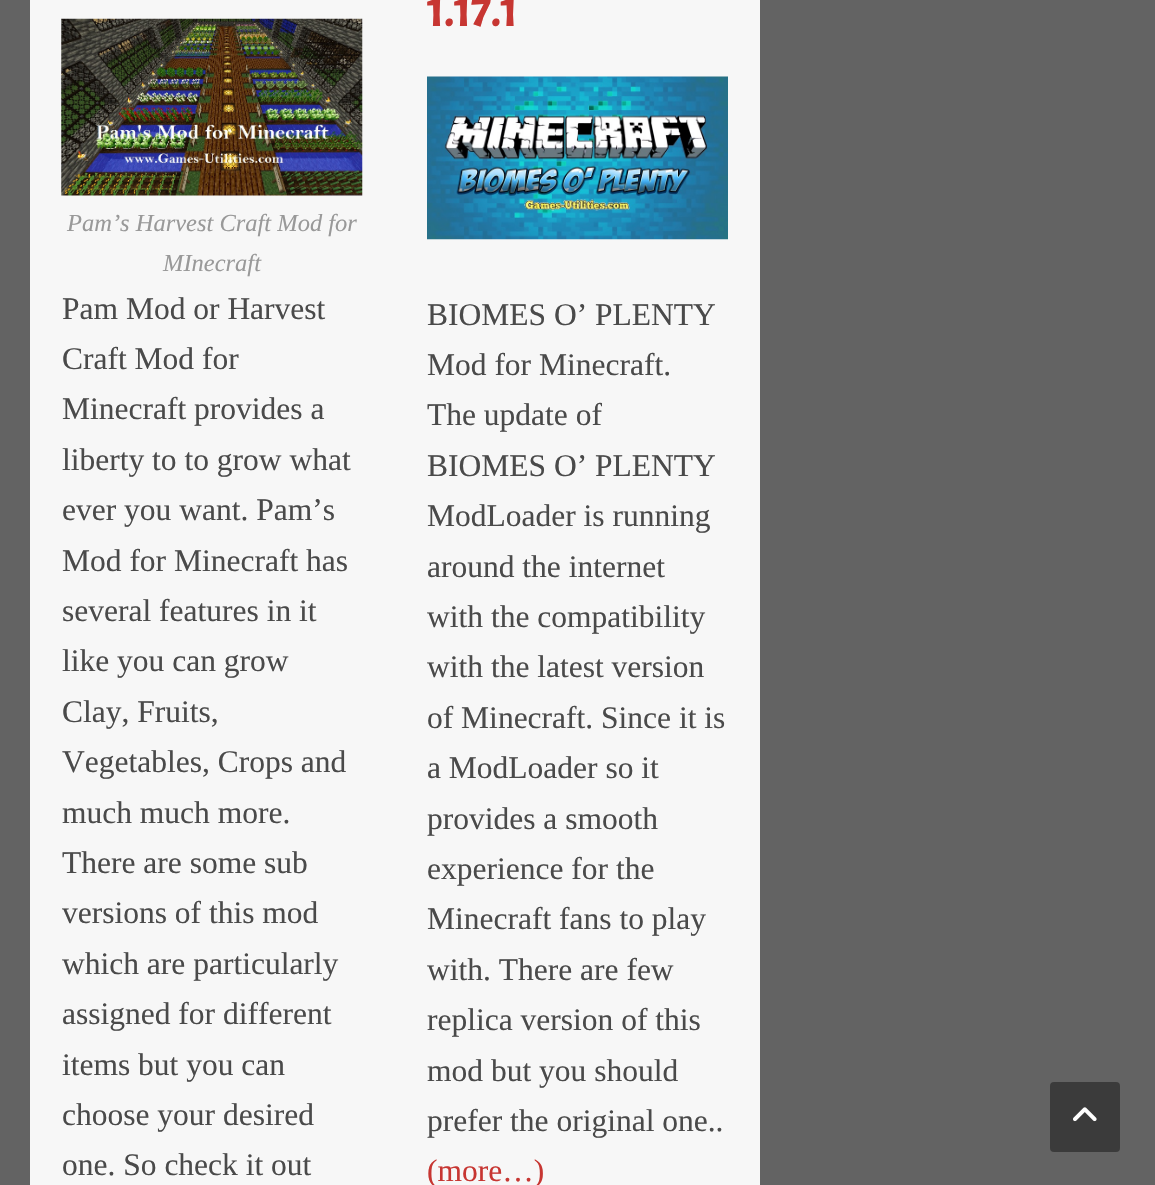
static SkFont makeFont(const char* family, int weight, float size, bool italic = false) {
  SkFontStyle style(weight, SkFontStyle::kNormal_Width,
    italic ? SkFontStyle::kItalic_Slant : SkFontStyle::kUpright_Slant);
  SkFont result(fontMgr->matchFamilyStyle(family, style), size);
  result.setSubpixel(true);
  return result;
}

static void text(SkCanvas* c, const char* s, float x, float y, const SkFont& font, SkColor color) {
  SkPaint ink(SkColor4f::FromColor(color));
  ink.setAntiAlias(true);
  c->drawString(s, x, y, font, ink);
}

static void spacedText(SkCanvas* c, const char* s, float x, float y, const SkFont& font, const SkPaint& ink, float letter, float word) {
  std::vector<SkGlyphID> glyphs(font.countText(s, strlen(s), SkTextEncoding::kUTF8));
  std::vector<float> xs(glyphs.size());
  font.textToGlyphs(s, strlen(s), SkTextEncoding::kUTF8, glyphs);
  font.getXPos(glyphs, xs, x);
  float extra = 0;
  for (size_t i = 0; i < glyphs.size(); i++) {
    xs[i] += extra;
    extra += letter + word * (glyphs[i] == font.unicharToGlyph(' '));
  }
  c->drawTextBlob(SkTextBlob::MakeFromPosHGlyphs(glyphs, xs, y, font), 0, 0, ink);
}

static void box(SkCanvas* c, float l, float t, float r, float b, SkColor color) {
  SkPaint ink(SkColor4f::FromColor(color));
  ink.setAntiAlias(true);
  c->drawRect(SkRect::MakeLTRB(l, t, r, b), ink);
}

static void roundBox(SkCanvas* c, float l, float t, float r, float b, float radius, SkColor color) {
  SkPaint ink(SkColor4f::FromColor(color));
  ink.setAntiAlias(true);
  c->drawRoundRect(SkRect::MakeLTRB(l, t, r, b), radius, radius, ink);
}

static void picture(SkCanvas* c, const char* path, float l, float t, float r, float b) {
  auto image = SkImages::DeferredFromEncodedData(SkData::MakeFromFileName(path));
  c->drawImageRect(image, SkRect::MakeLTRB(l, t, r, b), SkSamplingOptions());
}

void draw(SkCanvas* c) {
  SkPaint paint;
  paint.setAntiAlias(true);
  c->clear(0xff636363);
  box(c, 30, 0, 760, 1185, 0xfff7f7f7);
  picture(c, "img_01.png", 61, 18, 363, 196);
  SkFont face1 = makeFont("Liberation Serif", 400, 24.5f, true);
  text(c, "Pam’s Harvest Craft Mod for", 67, 231, face1, 0xff999999);
  text(c, "MInecraft", 163, 271, face1, 0xff999999);
  SkFont face2 = makeFont("Liberation Serif", 400, 31.5f);
  text(c, "Pam Mod or Harvest", 62, 319, face2, 0xff4a4a4a);
  text(c, "Craft Mod for", 62, 369, face2, 0xff4a4a4a);
  text(c, "Minecraft provides a", 62, 419, face2, 0xff4a4a4a);
  text(c, "liberty to to grow what", 62, 470, face2, 0xff4a4a4a);
  text(c, "ever you want. Pam’s", 62, 520, face2, 0xff4a4a4a);
  text(c, "Mod for Minecraft has", 62, 571, face2, 0xff4a4a4a);
  text(c, "several features in it", 62, 621, face2, 0xff4a4a4a);
  text(c, "like you can grow", 62, 671, face2, 0xff4a4a4a);
  text(c, "Clay, Fruits,", 62, 722, face2, 0xff4a4a4a);
  text(c, "Vegetables, Crops and", 62, 772, face2, 0xff4a4a4a);
  text(c, "much much more.", 62, 823, face2, 0xff4a4a4a);
  text(c, "There are some sub", 62, 873, face2, 0xff4a4a4a);
  text(c, "versions of this mod", 62, 923, face2, 0xff4a4a4a);
  text(c, "which are particularly", 62, 974, face2, 0xff4a4a4a);
  text(c, "assigned for different", 62, 1024, face2, 0xff4a4a4a);
  text(c, "items but you can", 62, 1075, face2, 0xff4a4a4a);
  text(c, "choose your desired", 62, 1125, face2, 0xff4a4a4a);
  text(c, "one. So check it out", 62, 1175, face2, 0xff4a4a4a);
  SkFont face3 = makeFont("Acme", 700, 42);
  paint.setColor(0xffc73632);
  spacedText(c, "1.17.1", 427, 26, face3, paint, 1, 0);
  picture(c, "img_02.png", 427, 76, 728, 240);
  text(c, "BIOMES O’ PLENTY", 427, 325, face2, 0xff4a4a4a);
  text(c, "Mod for Minecraft.", 427, 375, face2, 0xff4a4a4a);
  text(c, "The update of", 427, 425, face2, 0xff4a4a4a);
  text(c, "BIOMES O’ PLENTY", 427, 476, face2, 0xff4a4a4a);
  text(c, "ModLoader is running", 427, 526, face2, 0xff4a4a4a);
  text(c, "around the internet", 427, 577, face2, 0xff4a4a4a);
  text(c, "with the compatibility", 427, 627, face2, 0xff4a4a4a);
  text(c, "with the latest version", 427, 677, face2, 0xff4a4a4a);
  text(c, "of Minecraft. Since it is", 427, 728, face2, 0xff4a4a4a);
  text(c, "a ModLoader so it", 427, 778, face2, 0xff4a4a4a);
  text(c, "provides a smooth", 427, 829, face2, 0xff4a4a4a);
  text(c, "experience for the", 427, 879, face2, 0xff4a4a4a);
  text(c, "Minecraft fans to play", 427, 929, face2, 0xff4a4a4a);
  text(c, "with. There are few", 427, 980, face2, 0xff4a4a4a);
  text(c, "replica version of this", 427, 1030, face2, 0xff4a4a4a);
  text(c, "mod but you should", 427, 1081, face2, 0xff4a4a4a);
  text(c, "prefer the original one..", 427, 1131, face2, 0xff4a4a4a);
  text(c, "(more…)", 427, 1181, face2, 0xffc73632);
  roundBox(c, 1050, 1082, 1120, 1152, 4, 0xff3b3b3b);
  picture(c, "img_03.png", 1073, 1107, 1097, 1122);
}
